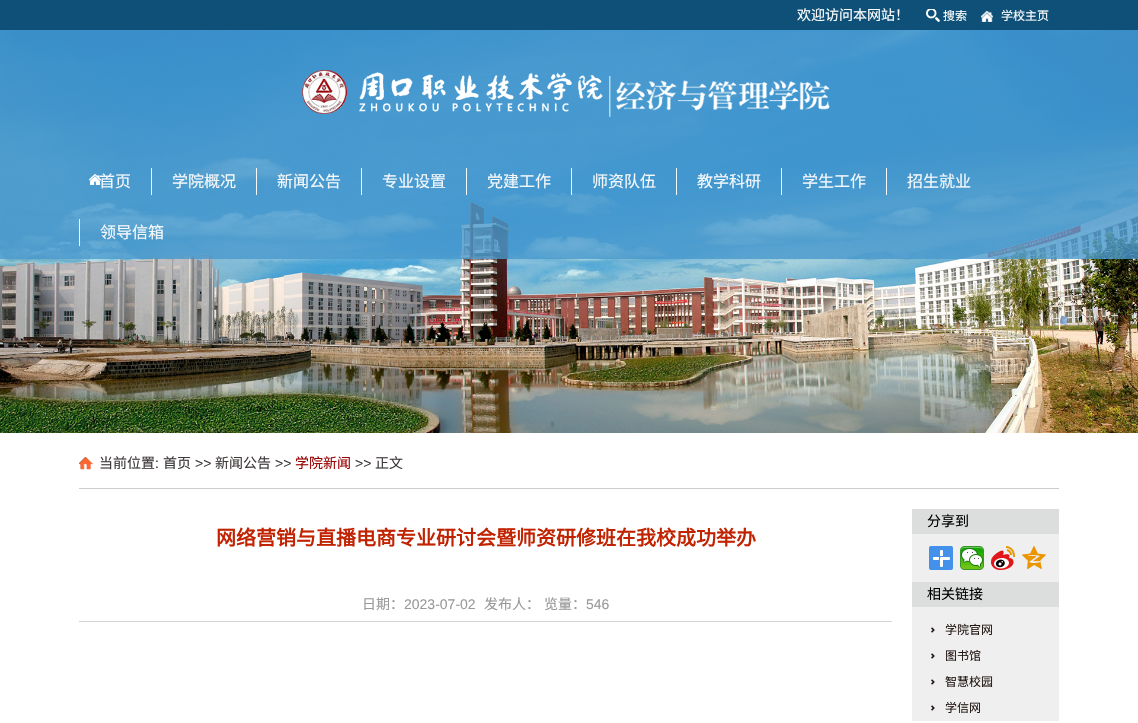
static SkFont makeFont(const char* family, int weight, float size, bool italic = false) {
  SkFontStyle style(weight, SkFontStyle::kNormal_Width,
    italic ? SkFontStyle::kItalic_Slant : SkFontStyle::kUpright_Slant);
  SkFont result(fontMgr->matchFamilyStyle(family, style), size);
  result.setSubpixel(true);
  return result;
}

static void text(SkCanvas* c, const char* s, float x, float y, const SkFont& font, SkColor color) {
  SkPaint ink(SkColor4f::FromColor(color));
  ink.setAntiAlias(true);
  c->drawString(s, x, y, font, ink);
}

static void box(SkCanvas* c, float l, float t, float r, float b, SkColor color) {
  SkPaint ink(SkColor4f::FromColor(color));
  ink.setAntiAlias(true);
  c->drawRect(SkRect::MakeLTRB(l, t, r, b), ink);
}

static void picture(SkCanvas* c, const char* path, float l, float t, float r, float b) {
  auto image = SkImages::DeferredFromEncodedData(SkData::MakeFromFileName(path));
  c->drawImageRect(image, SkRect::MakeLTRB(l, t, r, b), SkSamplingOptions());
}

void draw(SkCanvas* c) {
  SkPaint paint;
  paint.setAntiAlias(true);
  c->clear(0xffffffff);
  picture(c, "img_05.png", 0, 30, 1138, 433);
  box(c, 0, 30, 1138, 259, 0xcc4898cd);
  box(c, 0, 0, 1138, 30, 0xff0e5077);
  SkFont face1 = makeFont("Noto Sans CJK SC", 400, 14);
  text(c, "欢迎访问本网站！", 797, 20, face1, 0xffffffff);
  picture(c, "img_01.png", 926, 9, 940, 22);
  SkFont face2 = makeFont("Noto Sans CJK SC", 400, 12);
  text(c, "搜索", 943, 20, face2, 0xffffffff);
  picture(c, "img_02.png", 981, 11, 993, 22);
  text(c, "学校主页", 1001, 20, face2, 0xffffffff);
  picture(c, "img_03.png", 302, 70, 830, 117);
  picture(c, "img_04.png", 89, 174, 101, 185);
  SkFont face3 = makeFont("Noto Sans CJK SC", 400, 16);
  text(c, "首页", 99, 187, face3, 0xfff6f9fc);
  text(c, "学院概况", 172, 187, face3, 0xfff6f9fc);
  box(c, 151, 168, 152, 195, 0xfff6f9fc);
  text(c, "新闻公告", 277, 187, face3, 0xfff6f9fc);
  box(c, 256, 168, 257, 195, 0xfff6f9fc);
  text(c, "专业设置", 382, 187, face3, 0xfff6f9fc);
  box(c, 361, 168, 362, 195, 0xfff6f9fc);
  text(c, "党建工作", 487, 187, face3, 0xfff6f9fc);
  box(c, 466, 168, 467, 195, 0xfff6f9fc);
  text(c, "师资队伍", 592, 187, face3, 0xfff6f9fc);
  box(c, 571, 168, 572, 195, 0xfff6f9fc);
  text(c, "教学科研", 697, 187, face3, 0xfff6f9fc);
  box(c, 676, 168, 677, 195, 0xfff6f9fc);
  text(c, "学生工作", 802, 187, face3, 0xfff6f9fc);
  box(c, 781, 168, 782, 195, 0xfff6f9fc);
  text(c, "招生就业", 907, 187, face3, 0xfff6f9fc);
  box(c, 886, 168, 887, 195, 0xfff6f9fc);
  text(c, "领导信箱", 100, 238, face3, 0xfff6f9fc);
  box(c, 79, 219, 80, 246, 0xfff6f9fc);
  picture(c, "img_06.png", 79, 457, 93, 470);
  box(c, 79, 488, 1059, 489, 0xffcccccc);
  text(c, "当前位置", 99, 468, face1, 0xff3e3a39);
  SkFont face4 = makeFont("Liberation Sans", 400, 14);
  text(c, ":", 155, 468, face4, 0xff3e3a39);
  text(c, "首页", 163, 468, face1, 0xff3e3a39);
  text(c, ">>", 195, 468, face4, 0xff3e3a39);
  text(c, "新闻公告", 215, 468, face1, 0xff3e3a39);
  text(c, ">>", 275, 468, face4, 0xff3e3a39);
  text(c, "学院新闻", 295, 468, face1, 0xff990000);
  text(c, ">>", 355, 468, face4, 0xff3e3a39);
  text(c, "正文", 375, 468, face1, 0xff3e3a39);
  SkFont face5 = makeFont("Noto Sans CJK SC", 700, 20);
  text(c, "网络营销与直播电商专业研讨会暨师资研修班在我校成功举办", 216, 545, face5, 0xffc12200);
  box(c, 79, 621, 892, 622, 0xffd3d3d3);
  text(c, "日期：", 362, 609, face1, 0xff999999);
  text(c, "2023-07-02", 404, 609, face4, 0xff999999);
  text(c, "发布人：", 484, 609, face1, 0xff999999);
  text(c, "览量：", 544, 609, face1, 0xff999999);
  text(c, "546", 586, 609, face4, 0xff999999);
  box(c, 912, 534, 1059, 721, 0xffefefef);
  box(c, 912, 509, 1059, 534, 0xffdcdddd);
  text(c, "分享到", 927, 526, face1, 0xff000000);
  picture(c, "img_07.png", 929, 546, 953, 570);
  picture(c, "img_08.png", 960, 546, 984, 570);
  picture(c, "img_09.png", 991, 546, 1015, 570);
  picture(c, "img_10.png", 1022, 546, 1046, 569);
  box(c, 912, 582, 1059, 607, 0xffdcdddd);
  text(c, "相关链接", 927, 599, face1, 0xff000000);
  picture(c, "img_11.png", 931, 627, 935, 633);
  text(c, "学院官网", 945, 634, face2, 0xff231815);
  picture(c, "img_11.png", 931, 653, 935, 659);
  text(c, "图书馆", 945, 660, face2, 0xff231815);
  picture(c, "img_11.png", 931, 679, 935, 685);
  text(c, "智慧校园", 945, 686, face2, 0xff231815);
  picture(c, "img_11.png", 931, 705, 935, 711);
  text(c, "学信网", 945, 712, face2, 0xff231815);
}
